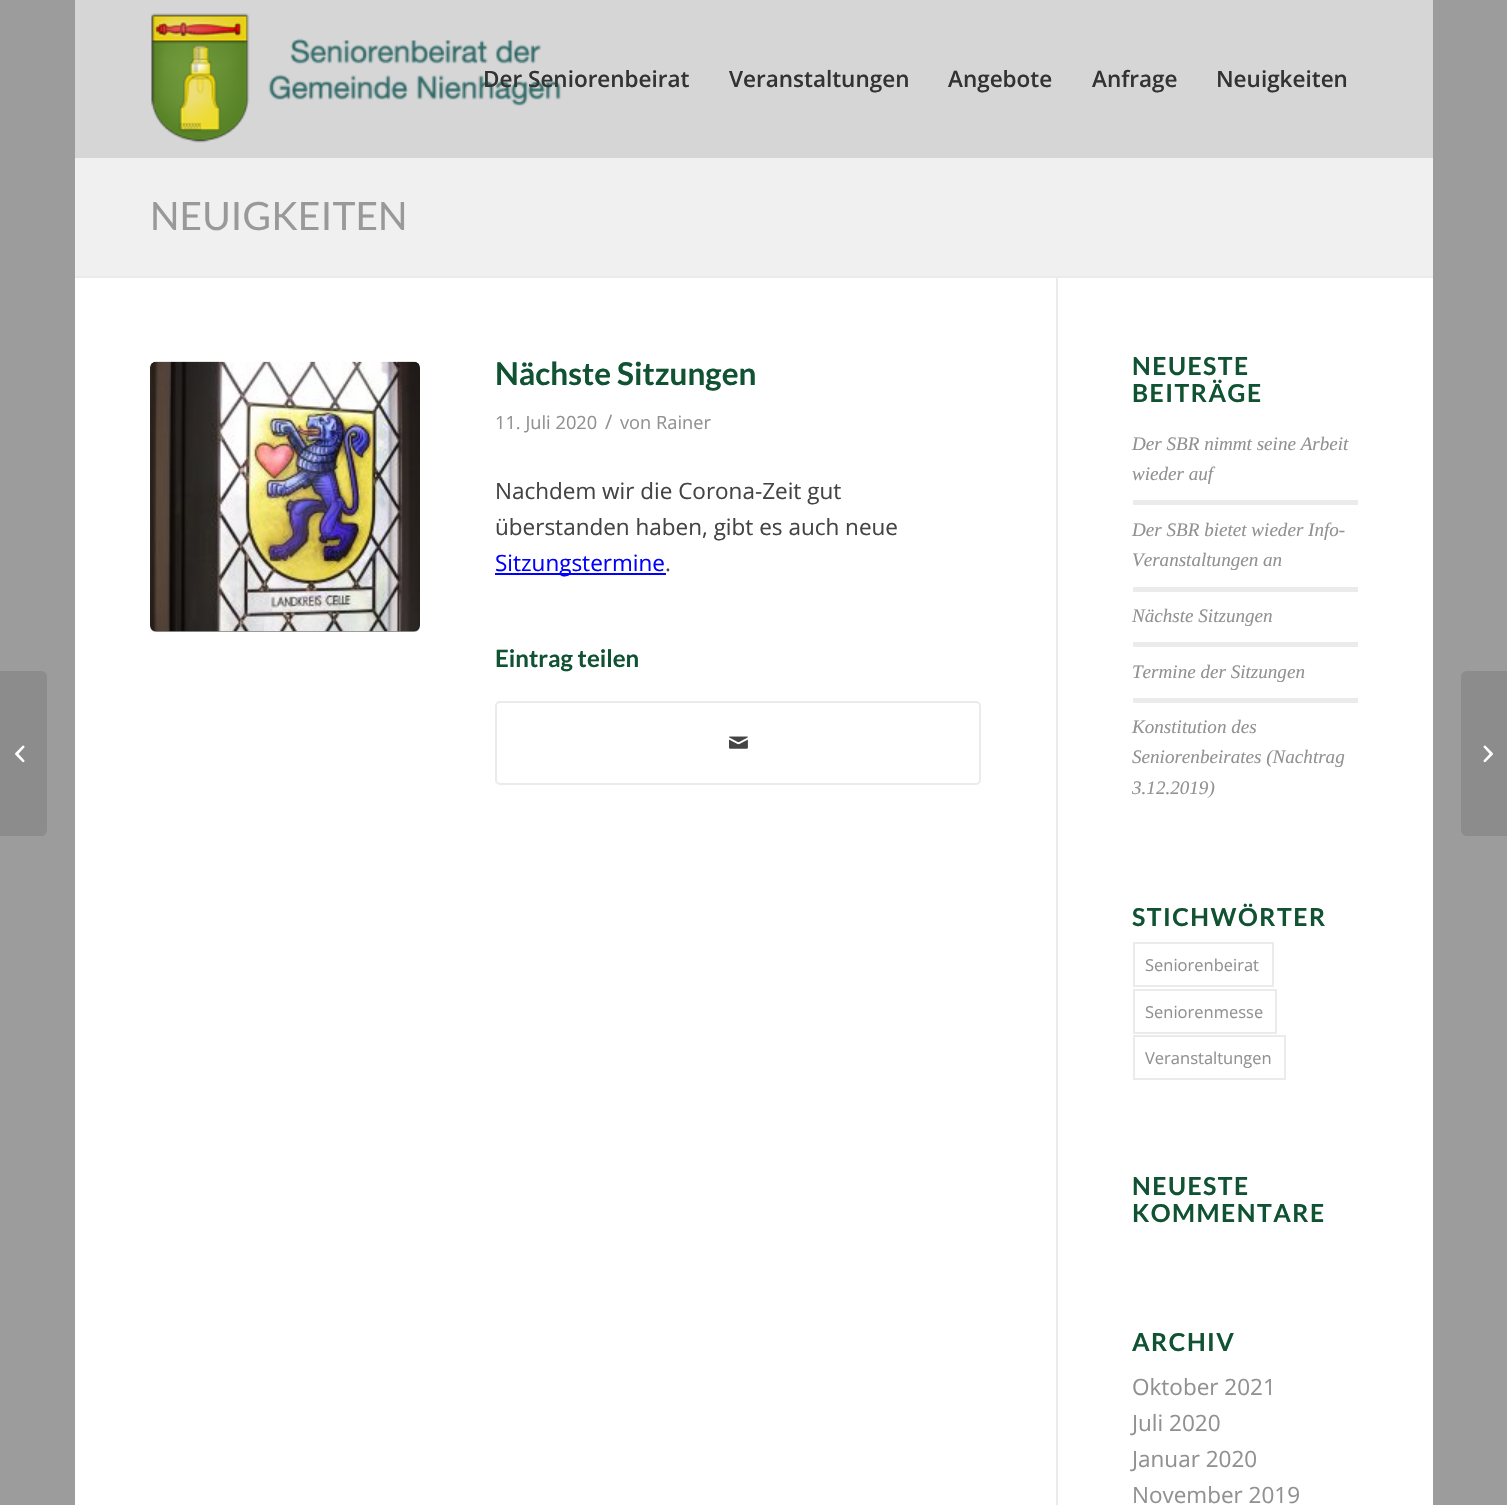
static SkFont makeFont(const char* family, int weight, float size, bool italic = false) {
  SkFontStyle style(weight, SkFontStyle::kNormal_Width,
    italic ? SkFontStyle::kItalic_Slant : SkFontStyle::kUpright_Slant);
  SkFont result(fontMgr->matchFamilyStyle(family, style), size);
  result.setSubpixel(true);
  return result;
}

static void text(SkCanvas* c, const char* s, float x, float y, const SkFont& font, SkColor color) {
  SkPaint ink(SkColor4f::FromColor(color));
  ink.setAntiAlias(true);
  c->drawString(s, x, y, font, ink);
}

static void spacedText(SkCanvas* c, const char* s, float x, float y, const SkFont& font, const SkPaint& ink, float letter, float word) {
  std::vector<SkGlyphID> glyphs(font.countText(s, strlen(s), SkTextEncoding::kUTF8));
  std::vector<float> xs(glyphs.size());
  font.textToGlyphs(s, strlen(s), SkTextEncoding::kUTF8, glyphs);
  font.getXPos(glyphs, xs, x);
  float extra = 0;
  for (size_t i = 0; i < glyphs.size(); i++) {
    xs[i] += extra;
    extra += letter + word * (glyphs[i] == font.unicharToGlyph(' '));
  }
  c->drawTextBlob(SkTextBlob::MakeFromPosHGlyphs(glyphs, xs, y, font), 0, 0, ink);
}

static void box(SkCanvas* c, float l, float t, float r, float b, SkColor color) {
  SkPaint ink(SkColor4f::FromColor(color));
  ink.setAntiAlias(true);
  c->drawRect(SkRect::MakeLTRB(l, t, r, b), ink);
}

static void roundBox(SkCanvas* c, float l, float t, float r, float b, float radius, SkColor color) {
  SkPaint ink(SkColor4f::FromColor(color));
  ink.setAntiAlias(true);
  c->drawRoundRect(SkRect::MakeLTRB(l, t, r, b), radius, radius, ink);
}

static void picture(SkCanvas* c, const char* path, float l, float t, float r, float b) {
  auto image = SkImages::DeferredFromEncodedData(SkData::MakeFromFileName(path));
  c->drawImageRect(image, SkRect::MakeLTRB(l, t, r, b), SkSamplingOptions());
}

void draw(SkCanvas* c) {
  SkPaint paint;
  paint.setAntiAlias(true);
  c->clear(0xff9c9c9c);
  box(c, 75, 0, 1433, 158, 0xffd6d6d6);
  picture(c, "img_01.png", 151, 13, 562, 143);
  SkFont face1 = makeFont("Open Sans", 600, 22.5f);
  text(c, "Der Seniorenbeirat", 483, 87, face1, 0xff333333);
  text(c, "Veranstaltungen", 729, 87, face1, 0xff333333);
  text(c, "Angebote", 948, 87, face1, 0xff333333);
  text(c, "Anfrage", 1092, 87, face1, 0xff333333);
  text(c, "Neuigkeiten", 1216, 87, face1, 0xff333333);
  paint.setColor(0xff8c8c8c);
  c->drawPath(SkPathBuilder().moveTo(0, 671).lineTo(41, 671).cubicTo(44.5f, 671, 47, 673.5f, 47, 677).lineTo(47, 830).cubicTo(47, 833.5f, 44.5f, 836, 41, 836).lineTo(0, 836).close().detach(), paint);
  picture(c, "img_02.png", 15, 745, 25, 763);
  box(c, 75, 158, 1433, 276, 0xfff0f0f0);
  SkFont face2 = makeFont("Lato", 400, 39);
  text(c, "NEUIGKEITEN", 150, 230, face2, 0xff999999);
  box(c, 75, 278, 1433, 1505, 0xffffffff);
  box(c, 75, 276, 1433, 278, 0xffebebeb);
  roundBox(c, 150, 362, 420, 632, 6, 0xff919191);
  picture(c, "img_03.png", 150, 361, 420, 632);
  SkFont face3 = makeFont("Lato", 700, 31.5f);
  text(c, "Nächste Sitzungen", 495, 385, face3, 0xff105232);
  SkFont face4 = makeFont("Open Sans", 400, 18.25f);
  text(c, "11. Juli 2020", 495, 429, face4, 0xff919191);
  SkFont face5 = makeFont("Open Sans", 400, 20);
  text(c, "/", 605, 429, face5, 0xff919191);
  text(c, "von Rainer", 620, 429, face4, 0xff919191);
  SkFont face6 = makeFont("Open Sans", 400, 22.5f);
  text(c, "Nachdem wir die Corona-Zeit gut", 495, 499, face6, 0xff444444);
  text(c, "überstanden haben, gibt es auch neue", 495, 535, face6, 0xff444444);
  box(c, 495, 573, 666, 575, 0xff0000ff);
  text(c, "Sitzungstermine", 495, 571, face6, 0xff0000ff);
  text(c, ".", 665, 571, face6, 0xff444444);
  SkFont face7 = makeFont("Lato", 700, 24);
  text(c, "Eintrag teilen", 495, 667, face7, 0xff105232);
  paint.setStyle(SkPaint::kStroke_Style);
  paint.setStrokeWidth(2);
  paint.setColor(0xffebebeb);
  c->drawRoundRect(SkRect::MakeLTRB(496, 702, 980, 784), 4, 4, paint);
  picture(c, "img_04.png", 729, 736, 748, 749);
  box(c, 1056, 278, 1058, 1505, 0xffebebeb);
  SkFont face8 = makeFont("Lato", 700, 24.75f);
  paint.setStyle(SkPaint::kFill_Style);
  paint.setColor(0xff105232);
  spacedText(c, "NEUESTE", 1132, 375, face8, paint, 1.5f, 0);
  spacedText(c, "BEITRÄGE", 1132, 402, face8, paint, 1.5f, 0);
  SkFont face9 = makeFont("Liberation Serif", 400, 19.1f, true);
  text(c, "Der SBR nimmt seine Arbeit", 1132, 450, face9, 0xff919191);
  text(c, "wieder auf", 1132, 480, face9, 0xff919191);
  box(c, 1133, 500, 1358, 505, 0xffebebeb);
  text(c, "Der SBR bietet wieder Info-", 1132, 536, face9, 0xff919191);
  text(c, "Veranstaltungen an", 1132, 566, face9, 0xff919191);
  box(c, 1133, 587, 1358, 592, 0xffebebeb);
  text(c, "Nächste Sitzungen", 1132, 622, face9, 0xff919191);
  box(c, 1133, 642, 1358, 647, 0xffebebeb);
  text(c, "Termine der Sitzungen", 1132, 678, face9, 0xff919191);
  box(c, 1133, 698, 1358, 703, 0xffebebeb);
  text(c, "Konstitution des", 1132, 733, face9, 0xff919191);
  text(c, "Seniorenbeirates (Nachtrag", 1132, 763, face9, 0xff919191);
  text(c, "3.12.2019)", 1132, 794, face9, 0xff919191);
  spacedText(c, "STICHWÖRTER", 1132, 926, face8, paint, 1.5f, 0);
  paint.setStyle(SkPaint::kStroke_Style);
  paint.setColor(0xffebebeb);
  c->drawRect(SkRect::MakeLTRB(1134, 943, 1273, 986), paint);
  SkFont face10 = makeFont("Open Sans", 400, 16.5f);
  text(c, "Seniorenbeirat", 1145, 971, face10, 0xff919191);
  c->drawRect(SkRect::MakeLTRB(1134, 990, 1276, 1033), paint);
  text(c, "Seniorenmesse", 1145, 1018, face10, 0xff919191);
  c->drawRect(SkRect::MakeLTRB(1134, 1036, 1285, 1079), paint);
  text(c, "Veranstaltungen", 1145, 1064, face10, 0xff919191);
  paint.setStyle(SkPaint::kFill_Style);
  paint.setColor(0xff105232);
  spacedText(c, "NEUESTE", 1132, 1195, face8, paint, 1.5f, 0);
  spacedText(c, "KOMMENTARE", 1132, 1222, face8, paint, 1.5f, 0);
  spacedText(c, "ARCHIV", 1132, 1351, face8, paint, 1.5f, 0);
  text(c, "Oktober 2021", 1132, 1395, face6, 0xff919191);
  text(c, "Juli 2020", 1132, 1431, face6, 0xff919191);
  text(c, "Januar 2020", 1132, 1467, face6, 0xff919191);
  text(c, "November 2019", 1132, 1503, face6, 0xff919191);
  paint.setColor(0xff8c8c8c);
  c->drawPath(SkPathBuilder().moveTo(1467, 671).lineTo(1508, 671).lineTo(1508, 836).lineTo(1467, 836).cubicTo(1463.5f, 836, 1461, 833.5f, 1461, 830).lineTo(1461, 677).cubicTo(1461, 673.5f, 1463.5f, 671, 1467, 671).close().detach(), paint);
  picture(c, "img_05.png", 1483, 745, 1493, 763);
}
